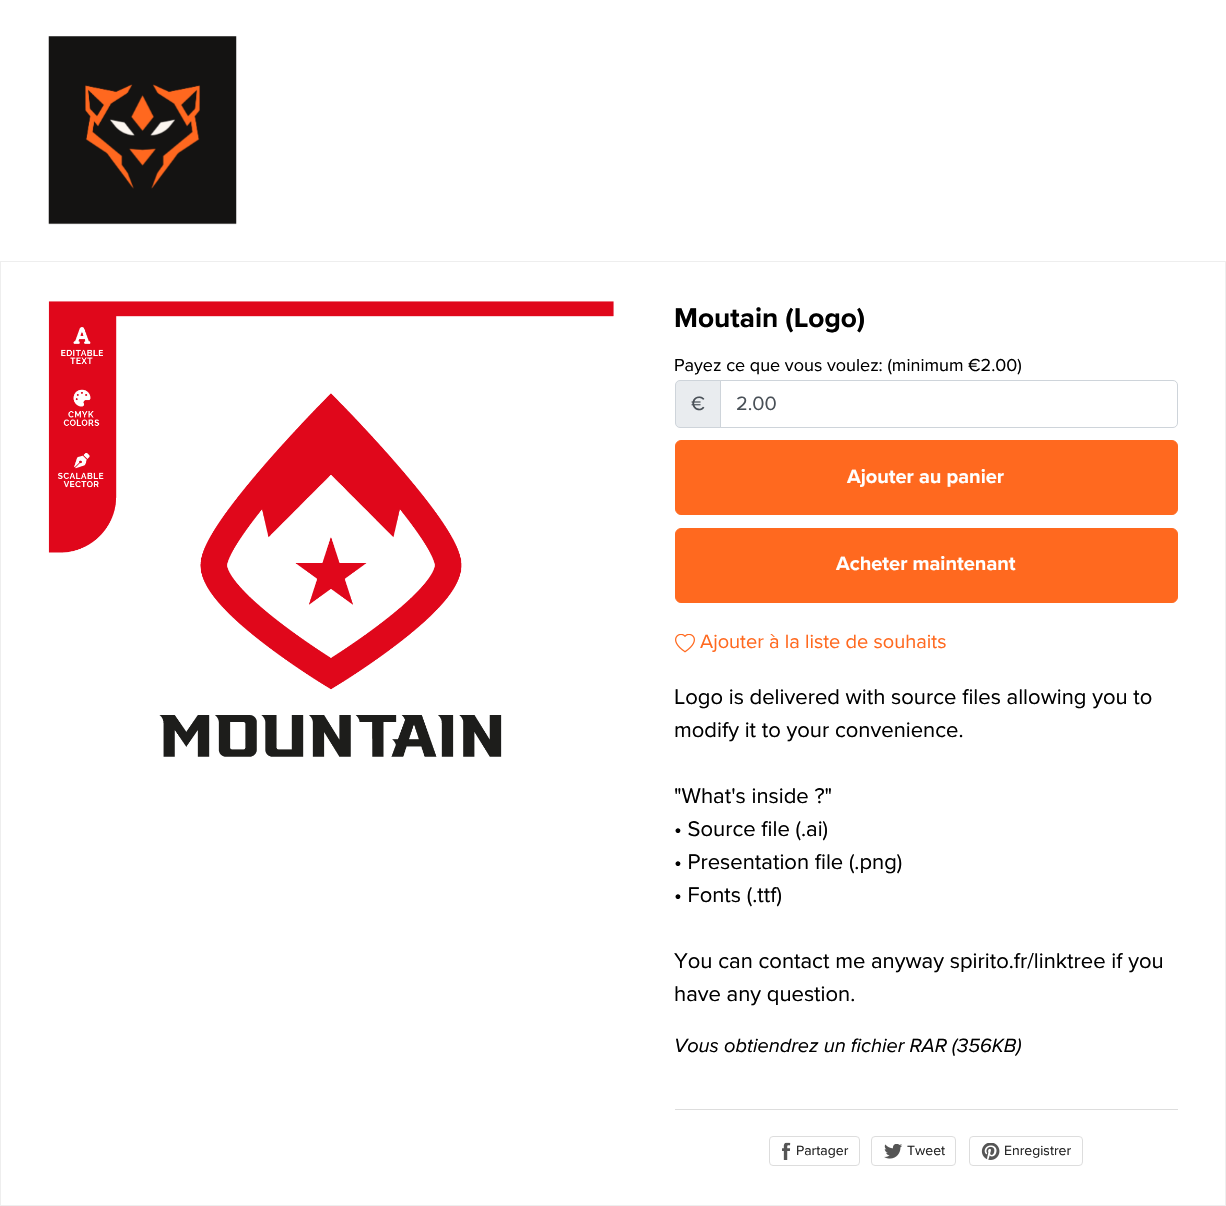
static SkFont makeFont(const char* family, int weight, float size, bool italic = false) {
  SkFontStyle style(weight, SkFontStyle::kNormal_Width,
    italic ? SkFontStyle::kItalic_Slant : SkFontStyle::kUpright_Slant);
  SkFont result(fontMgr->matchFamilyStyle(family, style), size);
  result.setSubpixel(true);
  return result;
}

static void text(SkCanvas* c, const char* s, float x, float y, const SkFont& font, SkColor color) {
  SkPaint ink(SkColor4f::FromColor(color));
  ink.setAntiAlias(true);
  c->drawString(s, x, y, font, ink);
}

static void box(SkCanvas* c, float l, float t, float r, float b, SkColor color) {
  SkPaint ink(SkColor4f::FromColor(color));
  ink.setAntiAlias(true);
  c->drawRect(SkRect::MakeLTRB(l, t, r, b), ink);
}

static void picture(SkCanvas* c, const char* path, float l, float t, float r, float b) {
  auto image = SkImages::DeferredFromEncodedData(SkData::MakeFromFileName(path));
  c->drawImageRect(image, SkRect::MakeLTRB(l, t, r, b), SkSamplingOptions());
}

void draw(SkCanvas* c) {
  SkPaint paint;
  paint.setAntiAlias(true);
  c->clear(0xffffffff);
  picture(c, "img_01.png", 48, 36, 237, 225);
  paint.setStyle(SkPaint::kStroke_Style);
  paint.setStrokeWidth(1);
  paint.setColor(0xffeeeeee);
  c->drawRect(SkRect::MakeLTRB(0.5f, 261.5f, 1225.5f, 1205.5f), paint);
  picture(c, "img_02.png", 48, 301, 614, 757);
  SkFont face1 = makeFont("Proxima Nova", 700, 28);
  text(c, "Moutain (Logo)", 674, 327, face1, 0xff000000);
  SkFont face2 = makeFont("Proxima Nova", 400, 18);
  text(c, "Payez ce que vous voulez: (minimum €2.00)", 674, 371, face2, 0xff000000);
  paint.setStyle(SkPaint::kFill_Style);
  paint.setColor(0xffe9ecef);
  c->drawPath(SkPathBuilder().moveTo(680, 380.5f).lineTo(720.5f, 380.5f).lineTo(720.5f, 427.5f).lineTo(680, 427.5f).cubicTo(677.5f, 427.5f, 675.5f, 425.5f, 675.5f, 423).lineTo(675.5f, 385).cubicTo(675.5f, 382.5f, 677.5f, 380.5f, 680, 380.5f).close().detach(), paint);
  paint.setStyle(SkPaint::kStroke_Style);
  paint.setColor(0xffced4da);
  c->drawPath(SkPathBuilder().moveTo(680, 380.5f).lineTo(720.5f, 380.5f).lineTo(720.5f, 427.5f).lineTo(680, 427.5f).cubicTo(677.5f, 427.5f, 675.5f, 425.5f, 675.5f, 423).lineTo(675.5f, 385).cubicTo(675.5f, 382.5f, 677.5f, 380.5f, 680, 380.5f).close().detach(), paint);
  SkFont face3 = makeFont("Proxima Nova", 400, 20);
  text(c, "€", 691, 410, face3, 0xff495057);
  c->drawPath(SkPathBuilder().moveTo(720.5f, 380.5f).lineTo(1173, 380.5f).cubicTo(1175.5f, 380.5f, 1177.5f, 382.5f, 1177.5f, 385).lineTo(1177.5f, 423).cubicTo(1177.5f, 425.5f, 1175.5f, 427.5f, 1173, 427.5f).lineTo(720.5f, 427.5f).close().detach(), paint);
  text(c, "2.00", 736, 410, face3, 0xff495057);
  paint.setStyle(SkPaint::kFill_Style);
  paint.setColor(0xffff691f);
  c->drawRoundRect(SkRect::MakeLTRB(675.5f, 440.5f, 1177.5f, 514.5f), 5.5f, 5.5f, paint);
  paint.setStyle(SkPaint::kStroke_Style);
  c->drawRoundRect(SkRect::MakeLTRB(675.5f, 440.5f, 1177.5f, 514.5f), 5.5f, 5.5f, paint);
  SkFont face4 = makeFont("Proxima Nova", 700, 20);
  text(c, "Ajouter au panier", 847, 483, face4, 0xffffffff);
  paint.setStyle(SkPaint::kFill_Style);
  c->drawRoundRect(SkRect::MakeLTRB(675.5f, 528.5f, 1177.5f, 602.5f), 5.5f, 5.5f, paint);
  paint.setStyle(SkPaint::kStroke_Style);
  c->drawRoundRect(SkRect::MakeLTRB(675.5f, 528.5f, 1177.5f, 602.5f), 5.5f, 5.5f, paint);
  text(c, "Acheter maintenant", 836, 570, face4, 0xffffffff);
  picture(c, "img_03.png", 675, 634, 695, 653);
  text(c, "Ajouter à la liste de souhaits", 700, 648, face3, 0xffff691f);
  SkFont face5 = makeFont("Proxima Nova", 400, 22);
  text(c, "Logo is delivered with source files allowing you to", 674, 704, face5, 0xff000000);
  text(c, "modify it to your convenience.", 674, 737, face5, 0xff000000);
  text(c, "\"What's inside ?\"", 674, 803, face5, 0xff000000);
  text(c, "• Source file (.ai)", 674, 836, face5, 0xff000000);
  text(c, "• Presentation file (.png)", 674, 869, face5, 0xff000000);
  text(c, "• Fonts (.ttf)", 674, 902, face5, 0xff000000);
  text(c, "You can contact me anyway spirito.fr/linktree if you", 674, 968, face5, 0xff000000);
  text(c, "have any question.", 674, 1001, face5, 0xff000000);
  SkFont face6 = makeFont("Proxima Nova", 400, 20, true);
  text(c, "Vous obtiendrez un fichier RAR (356KB)", 674, 1052, face6, 0xff000000);
  box(c, 675, 1109, 1178, 1110, 0xffdddddd);
  paint.setColor(0xffdddddd);
  c->drawRoundRect(SkRect::MakeLTRB(769.5f, 1136.5f, 859.5f, 1165.5f), 3.5f, 3.5f, paint);
  picture(c, "img_04.png", 782, 1142, 791, 1160);
  SkFont face7 = makeFont("Proxima Nova", 400, 14);
  text(c, "Partager", 796, 1155, face7, 0xff222222);
  c->drawRoundRect(SkRect::MakeLTRB(871.5f, 1136.5f, 955.5f, 1165.5f), 3.5f, 3.5f, paint);
  picture(c, "img_05.png", 884, 1144, 903, 1159);
  text(c, "Tweet", 907, 1155, face7, 0xff222222);
  c->drawRoundRect(SkRect::MakeLTRB(969.5f, 1136.5f, 1082.5f, 1165.5f), 3.5f, 3.5f, paint);
  picture(c, "img_06.png", 981, 1143, 1000, 1160);
  text(c, "Enregistrer", 1004, 1155, face7, 0xff222222);
}
